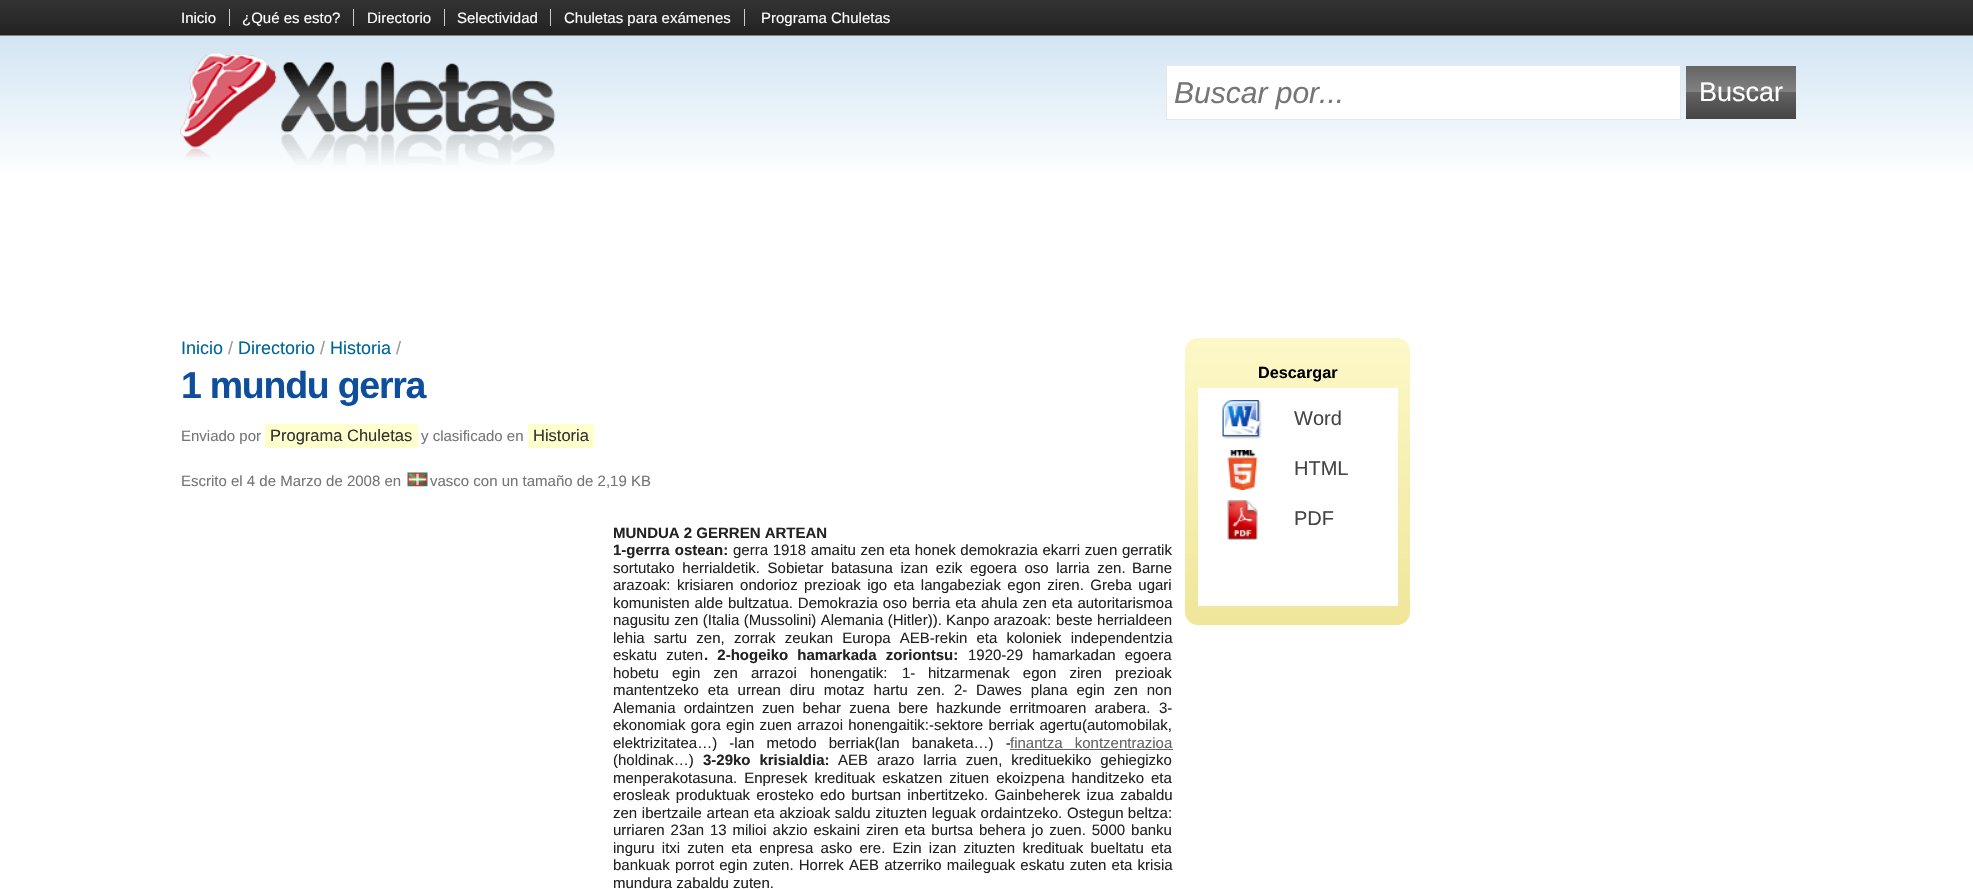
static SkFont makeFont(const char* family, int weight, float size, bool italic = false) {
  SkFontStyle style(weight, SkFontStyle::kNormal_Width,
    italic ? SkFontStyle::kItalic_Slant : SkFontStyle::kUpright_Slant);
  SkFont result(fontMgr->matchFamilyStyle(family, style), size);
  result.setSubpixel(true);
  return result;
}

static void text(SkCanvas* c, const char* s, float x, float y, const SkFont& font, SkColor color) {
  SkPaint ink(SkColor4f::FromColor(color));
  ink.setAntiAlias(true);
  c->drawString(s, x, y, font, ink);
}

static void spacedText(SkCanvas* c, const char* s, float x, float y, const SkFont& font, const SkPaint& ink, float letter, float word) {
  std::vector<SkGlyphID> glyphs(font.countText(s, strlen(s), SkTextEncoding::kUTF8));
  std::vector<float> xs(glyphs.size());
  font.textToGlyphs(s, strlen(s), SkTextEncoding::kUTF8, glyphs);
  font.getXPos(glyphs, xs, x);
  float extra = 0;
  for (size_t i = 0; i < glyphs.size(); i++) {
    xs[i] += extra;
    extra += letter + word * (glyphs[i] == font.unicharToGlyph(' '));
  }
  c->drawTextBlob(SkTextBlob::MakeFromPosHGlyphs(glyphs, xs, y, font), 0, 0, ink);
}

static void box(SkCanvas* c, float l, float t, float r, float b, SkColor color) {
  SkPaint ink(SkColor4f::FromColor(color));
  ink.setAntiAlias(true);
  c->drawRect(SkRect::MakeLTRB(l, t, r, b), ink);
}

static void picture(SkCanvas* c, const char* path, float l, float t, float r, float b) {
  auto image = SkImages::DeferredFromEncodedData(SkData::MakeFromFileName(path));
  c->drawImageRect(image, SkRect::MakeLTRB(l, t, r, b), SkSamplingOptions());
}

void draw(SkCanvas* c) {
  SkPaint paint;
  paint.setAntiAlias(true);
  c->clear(0xffffffff);
  {
    const SkColor colors[] = {0xff333333, 0xff222222};
    const float stops[] = {0, 1};
    const SkPoint ends[] = {{987, 0}, {987, 35}};
    paint.setShader(SkGradientShader::MakeLinear(ends, colors, stops, 2, SkTileMode::kClamp));
    paint.setAlpha(255);
  }
  c->drawRect(SkRect::MakeLTRB(0, 0, 1973, 35), paint);
  box(c, 0, 35, 1973, 36, 0xff818181);
  SkFont face1 = makeFont("Liberation Sans", 400, 15);
  text(c, "Inicio", 181, 23, face1, 0xffffffff);
  box(c, 229, 9, 230, 26, 0xffcccccc);
  text(c, "¿Qué es esto?", 242, 23, face1, 0xffffffff);
  box(c, 353, 9, 354, 26, 0xffcccccc);
  text(c, "Directorio", 367, 23, face1, 0xffffffff);
  box(c, 444, 9, 445, 26, 0xffcccccc);
  text(c, "Selectividad", 457, 23, face1, 0xffffffff);
  box(c, 550, 9, 551, 26, 0xffcccccc);
  text(c, "Chuletas para exámenes", 564, 23, face1, 0xffffffff);
  box(c, 744, 9, 745, 26, 0xffcccccc);
  text(c, "Programa Chuletas", 761, 23, face1, 0xffffffff);
  {
    const SkColor colors[] = {0xffd2e5f3, 0xffffffff};
    const float stops[] = {0, 1};
    const SkPoint ends[] = {{987, 36}, {987, 181}};
    paint.setShader(SkGradientShader::MakeLinear(ends, colors, stops, 2, SkTileMode::kClamp));
    paint.setAlpha(255);
  }
  c->drawRect(SkRect::MakeLTRB(0, 36, 1973, 173), paint);
  picture(c, "img_01.png", 180, 52, 556, 165);
  paint.setShader(nullptr);
  paint.setColor(0xffffffff);
  c->drawRect(SkRect::MakeLTRB(1166.5f, 65.5f, 1680.5f, 119.5f), paint);
  paint.setStyle(SkPaint::kStroke_Style);
  paint.setStrokeWidth(1);
  paint.setColor(0xffe1e8ee);
  c->drawRect(SkRect::MakeLTRB(1166.5f, 65.5f, 1680.5f, 119.5f), paint);
  SkFont face2 = makeFont("Liberation Sans", 400, 30, true);
  text(c, "Buscar por...", 1174, 103, face2, 0xff757575);
  paint.setStyle(SkPaint::kFill_Style);
  {
    const SkColor colors[] = {0xff656565, 0xff818181, 0xff626262, 0xff454545};
    const float stops[] = {0, 0.49f, 0.5f, 1};
    const SkPoint ends[] = {{1741, 66}, {1741, 119}};
    paint.setShader(SkGradientShader::MakeLinear(ends, colors, stops, 4, SkTileMode::kClamp));
    paint.setAlpha(255);
  }
  c->drawRect(SkRect::MakeLTRB(1686, 66, 1796, 119), paint);
  SkFont face3 = makeFont("Liberation Sans", 400, 27);
  text(c, "Buscar", 1699, 101, face3, 0xffffffff);
  SkFont face4 = makeFont("Liberation Sans", 400, 18);
  text(c, "Inicio", 181, 354, face4, 0xff006699);
  text(c, "/", 228, 354, face4, 0xff999999);
  text(c, "Directorio", 238, 354, face4, 0xff006699);
  text(c, "/", 320, 354, face4, 0xff999999);
  text(c, "Historia", 330, 354, face4, 0xff006699);
  text(c, "/", 396, 354, face4, 0xff999999);
  SkFont face5 = makeFont("Liberation Sans", 700, 37.5f);
  paint.setShader(nullptr);
  paint.setColor(0xff0e4e9b);
  spacedText(c, "1 mundu gerra", 181, 398, face5, paint, -1.25f, 0);
  text(c, "Enviado por", 181, 441, face1, 0xff757575);
  box(c, 265, 424, 418, 448, 0xffffffcd);
  SkFont face6 = makeFont("Liberation Sans", 400, 16.5f);
  text(c, "Programa Chuletas", 270, 441, face6, 0xff333333);
  text(c, "y clasificado en", 421, 441, face1, 0xff757575);
  box(c, 528, 424, 594, 448, 0xffffffcd);
  text(c, "Historia", 533, 441, face6, 0xff333333);
  text(c, "Escrito el 4 de Marzo de 2008 en", 181, 486, face1, 0xff757575);
  picture(c, "img_02.png", 407, 472, 428, 487);
  text(c, "vasco con un tamaño de 2,19 KB", 430, 486, face1, 0xff757575);
  SkFont face7 = makeFont("Liberation Sans", 700, 15);
  text(c, "MUNDUA 2 GERREN ARTEAN", 613, 538, face7, 0xff222222);
  paint.setColor(0xff222222);
  spacedText(c, "1-gerrra ostean:", 613, 555, face7, paint, 0, 1);
  spacedText(c, "gerra 1918 amaitu zen eta honek demokrazia ekarri zuen gerratik", 733, 555, face1, paint, 0, 0.5f);
  spacedText(c, "sortutako herrialdetik. Sobietar batasuna izan ezik egoera oso larria zen.", 613, 573, face1, paint, 0, 3.5f);
  text(c, "Barne", 1132, 573, face1, 0xff222222);
  text(c, "arazoak:", 613, 590, face1, 0xff222222);
  spacedText(c, "krisiaren ondorioz prezioak igo eta langabeziak egon ziren. Greba ugari", 677, 590, face1, paint, 0, 2.25f);
  spacedText(c, "komunisten alde bultzatua. Demokrazia oso berria eta ahula zen eta autoritarismoa", 613, 608, face1, paint, 0, 0.75f);
  spacedText(c, "nagusitu zen (Italia (Mussolini) Alemania (Hitler)).", 613, 625, face1, paint, 0, 0.25f);
  text(c, "Kanpo arazoak:", 946, 625, face1, 0xff222222);
  spacedText(c, "beste herrialdeen", 1056, 625, face1, paint, 0, 0.25f);
  spacedText(c, "lehia sartu zen, zorrak zeukan Europa AEB-rekin eta koloniek independentzia", 613, 643, face1, paint, 0, 5);
  spacedText(c, "eskatu zuten", 613, 660, face1, paint, 0, 5);
  spacedText(c, ". 2-hogeiko hamarkada zoriontsu:", 704, 660, face7, paint, 0, 5);
  spacedText(c, "1920-29 hamarkadan egoera", 968, 660, face1, paint, 0, 5);
  spacedText(c, "hobetu egin zen arrazoi honengatik:", 613, 678, face1, paint, 0, 9);
  text(c, "1-", 902, 678, face1, 0xff222222);
  spacedText(c, "hitzarmenak egon ziren prezioak", 928, 678, face1, paint, 0, 9);
  spacedText(c, "mantentzeko eta urrean diru motaz hartu zen.", 613, 695, face1, paint, 0, 4.75f);
  text(c, "2-", 954, 695, face1, 0xff222222);
  spacedText(c, "Dawes plana egin zen non", 976, 695, face1, paint, 0, 4.75f);
  spacedText(c, "Alemania ordaintzen zuen behar zuena bere hazkunde erritmoaren arabera.", 613, 713, face1, paint, 0, 4);
  text(c, "3-", 1159, 713, face1, 0xff222222);
  spacedText(c, "ekonomiak gora egin zuen arrazoi honengaitik:-sektore berriak agertu(automobilak,", 613, 730, face1, paint, 0, 1);
  spacedText(c, "elektrizitatea…) -lan metodo berriak(lan banaketa…) -", 613, 748, face1, paint, 0, 8);
  box(c, 1010, 749, 1173, 750, 0xff646464);
  paint.setColor(0xff646464);
  spacedText(c, "finantza kontzentrazioa", 1010, 748, face1, paint, 0, 8);
  text(c, "(holdinak…)", 613, 765, face1, 0xff222222);
  paint.setColor(0xff222222);
  spacedText(c, "3-29ko krisialdia:", 703, 765, face7, paint, 0, 4.75f);
  spacedText(c, "AEB arazo larria zuen, kredituekiko gehiegizko", 838, 765, face1, paint, 0, 4.75f);
  spacedText(c, "menperakotasuna. Enpresek kredituak eskatzen zituen ekoizpena handitzeko eta", 613, 783, face1, paint, 0, 2.75f);
  spacedText(c, "erosleak produktuak erosteko edo burtsan inbertitzeko. Gainbeherek izua zabaldu", 613, 800, face1, paint, 0, 2);
  spacedText(c, "zen ibertzaile artean eta akzioak saldu zituzten leguak ordaintzeko.", 613, 818, face1, paint, 0, 0.5f);
  text(c, "Ostegun beltza:", 1067, 818, face1, 0xff222222);
  spacedText(c, "urriaren 23an 13 milioi akzio eskaini ziren eta burtsa behera jo zuen. 5000 banku", 613, 835, face1, paint, 0, 1.75f);
  spacedText(c, "inguru itxi zuten eta enpresa asko ere. Ezin izan zituzten kredituak bueltatu eta", 613, 853, face1, paint, 0, 3);
  spacedText(c, "bankuak porrot egin zuten. Horrek AEB atzerriko maileguak eskatu zuten eta krisia", 613, 870, face1, paint, 0, 1);
  text(c, "mundura zabaldu zuten.", 613, 888, face1, 0xff222222);
  {
    const SkColor colors[] = {0xfffdf8c8, 0xffefe69a};
    const float stops[] = {0, 1};
    const SkPoint ends[] = {{1298, 338}, {1298, 625}};
    paint.setShader(SkGradientShader::MakeLinear(ends, colors, stops, 2, SkTileMode::kClamp));
    paint.setAlpha(255);
  }
  c->drawRoundRect(SkRect::MakeLTRB(1185, 338, 1410, 625), 13, 13, paint);
  SkFont face8 = makeFont("Liberation Sans", 700, 16.25f);
  text(c, "Descargar", 1258, 378, face8, 0xff000000);
  box(c, 1198, 388, 1398, 606, 0xffffffff);
  picture(c, "img_03.png", 1222, 400, 1262, 439);
  SkFont face9 = makeFont("Liberation Sans", 400, 20);
  text(c, "Word", 1294, 425, face9, 0xff444444);
  picture(c, "img_04.png", 1227, 450, 1258, 490);
  text(c, "HTML", 1294, 475, face9, 0xff444444);
  picture(c, "img_05.png", 1227, 500, 1258, 540);
  text(c, "PDF", 1294, 525, face9, 0xff444444);
}
